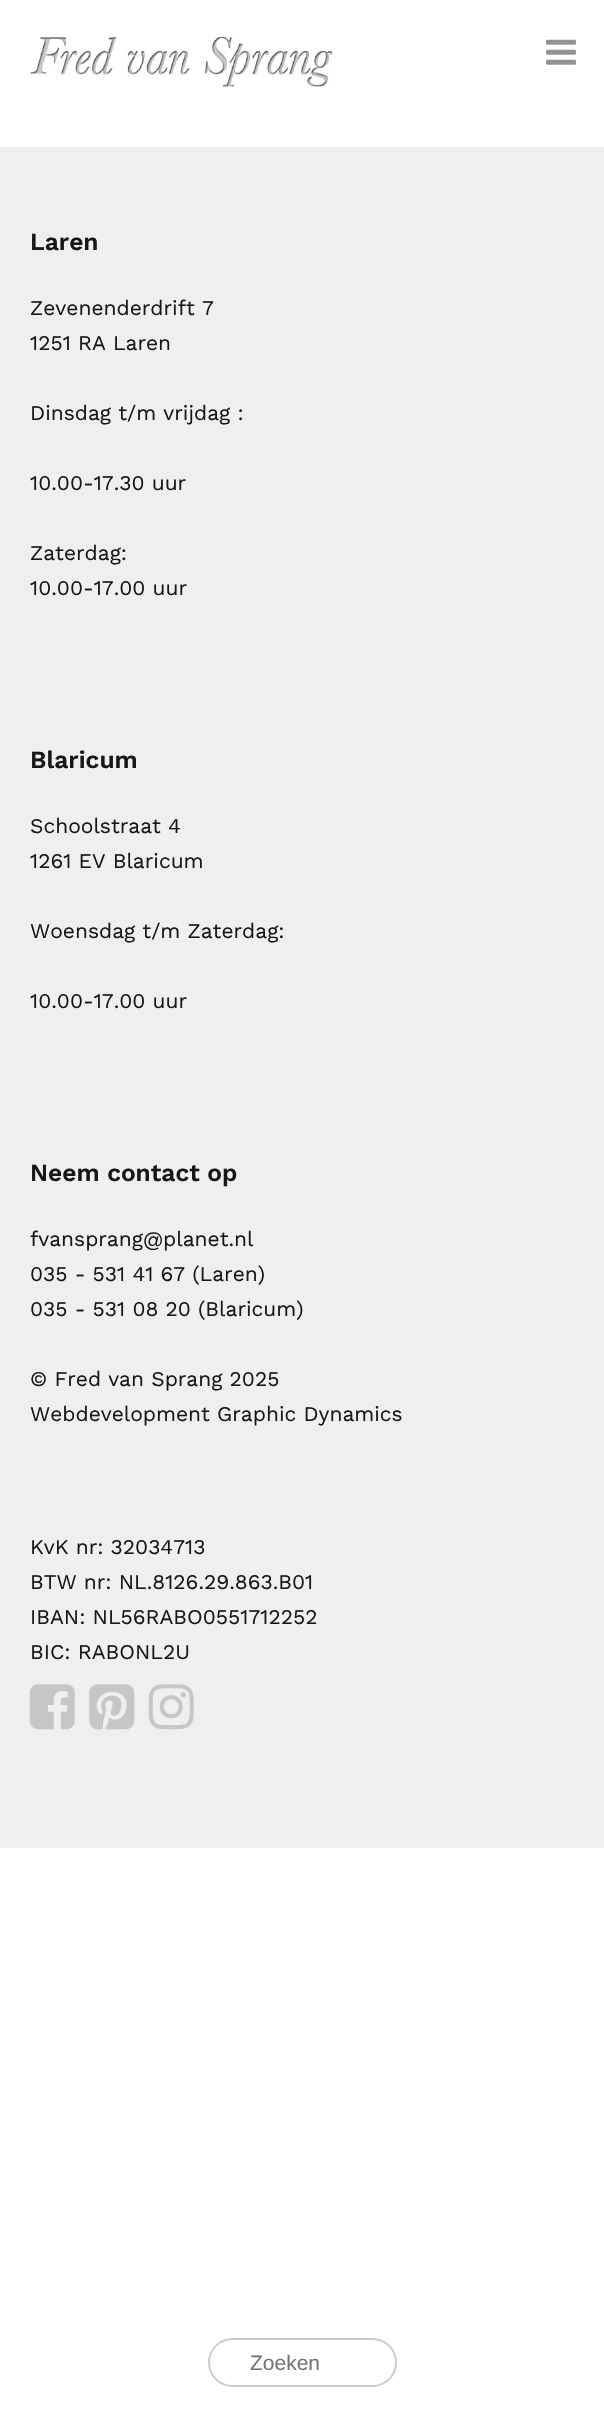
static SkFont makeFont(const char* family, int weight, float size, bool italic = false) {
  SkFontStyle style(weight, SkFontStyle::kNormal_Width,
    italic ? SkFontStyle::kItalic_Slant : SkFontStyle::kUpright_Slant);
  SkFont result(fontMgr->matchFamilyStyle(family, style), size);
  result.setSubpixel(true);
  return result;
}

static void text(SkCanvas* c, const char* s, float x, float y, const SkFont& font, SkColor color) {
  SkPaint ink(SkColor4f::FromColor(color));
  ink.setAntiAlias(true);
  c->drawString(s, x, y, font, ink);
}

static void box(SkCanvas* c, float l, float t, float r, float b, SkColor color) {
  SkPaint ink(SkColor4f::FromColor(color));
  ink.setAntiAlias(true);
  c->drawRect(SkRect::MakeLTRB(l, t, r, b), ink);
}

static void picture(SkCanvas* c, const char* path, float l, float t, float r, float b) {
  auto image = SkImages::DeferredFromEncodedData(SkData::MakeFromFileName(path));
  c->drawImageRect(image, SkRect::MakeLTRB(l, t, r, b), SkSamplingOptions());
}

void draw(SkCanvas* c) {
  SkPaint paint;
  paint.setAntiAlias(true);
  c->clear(0xffffffff);
  picture(c, "img_01.png", 30, 36, 333, 87);
  picture(c, "img_02.png", 546, 39, 576, 65);
  box(c, 0, 147, 604, 1848, 0xffeeefef);
  SkFont face1 = makeFont("Work Sans", 600, 24.5f);
  text(c, "Laren", 30, 250, face1, 0xff171717);
  SkFont face2 = makeFont("Work Sans", 400, 21);
  text(c, "Zevenenderdrift 7", 30, 315, face2, 0xff171717);
  text(c, "1251 RA Laren", 30, 350, face2, 0xff171717);
  text(c, "Dinsdag t/m vrijdag :", 30, 420, face2, 0xff171717);
  text(c, "10.00-17.30 uur", 30, 490, face2, 0xff171717);
  text(c, "Zaterdag:", 30, 560, face2, 0xff171717);
  text(c, "10.00-17.00 uur", 30, 595, face2, 0xff171717);
  text(c, "Blaricum", 30, 768, face1, 0xff171717);
  text(c, "Schoolstraat 4", 30, 833, face2, 0xff171717);
  text(c, "1261 EV Blaricum", 30, 868, face2, 0xff171717);
  text(c, "Woensdag t/m Zaterdag:", 30, 938, face2, 0xff171717);
  text(c, "10.00-17.00 uur", 30, 1008, face2, 0xff171717);
  text(c, "Neem contact op", 30, 1181, face1, 0xff171717);
  text(c, "fvansprang@planet.nl", 30, 1246, face2, 0xff171717);
  text(c, "035 - 531 41 67 (Laren)", 30, 1281, face2, 0xff171717);
  text(c, "035 - 531 08 20 (Blaricum)", 30, 1316, face2, 0xff171717);
  text(c, "© Fred van Sprang 2025", 30, 1386, face2, 0xff171717);
  text(c, "Webdevelopment Graphic Dynamics", 30, 1421, face2, 0xff171717);
  text(c, "KvK nr: 32034713", 30, 1554, face2, 0xff171717);
  text(c, "BTW nr: NL.8126.29.863.B01", 30, 1589, face2, 0xff171717);
  text(c, "IBAN: NL56RABO0551712252", 30, 1624, face2, 0xff171717);
  text(c, "BIC: RABONL2U", 30, 1659, face2, 0xff171717);
  picture(c, "img_03.png", 29, 1684, 75, 1730);
  picture(c, "img_04.png", 89, 1684, 135, 1730);
  picture(c, "img_05.png", 148, 1684, 194, 1730);
  paint.setStyle(SkPaint::kStroke_Style);
  paint.setStrokeWidth(2);
  paint.setColor(0xffcccccc);
  c->drawRoundRect(SkRect::MakeLTRB(209, 2339, 396, 2386), 23.5f, 23.5f, paint);
  SkFont face3 = makeFont("Liberation Sans", 400, 21);
  text(c, "Zoeken", 250, 2370, face3, 0xff757575);
}
